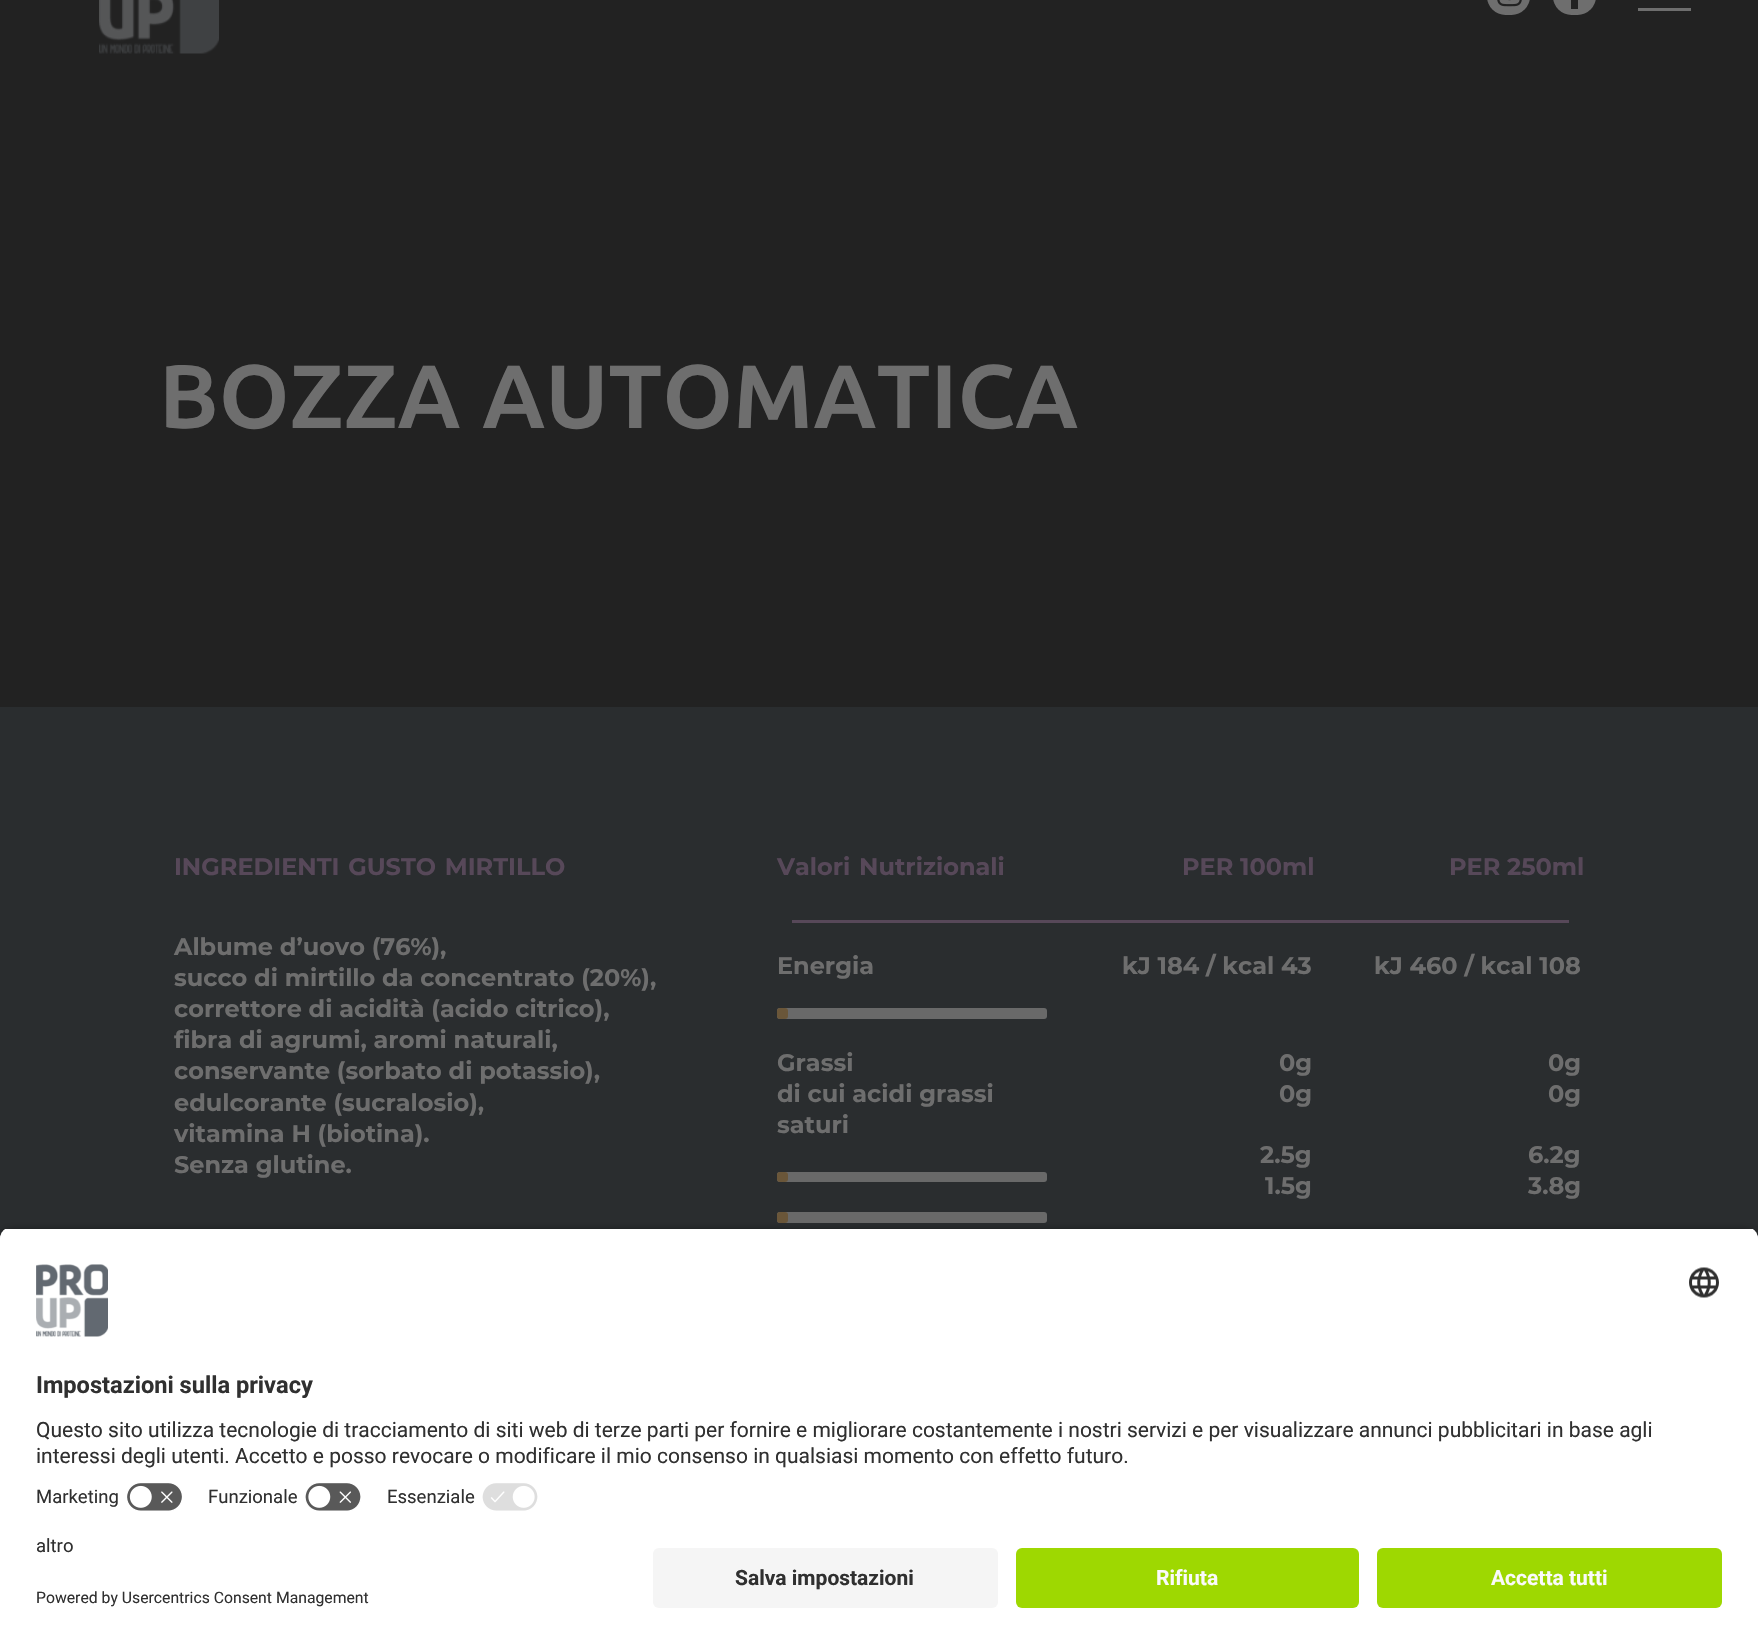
static SkFont makeFont(const char* family, int weight, float size, bool italic = false) {
  SkFontStyle style(weight, SkFontStyle::kNormal_Width,
    italic ? SkFontStyle::kItalic_Slant : SkFontStyle::kUpright_Slant);
  SkFont result(fontMgr->matchFamilyStyle(family, style), size);
  result.setSubpixel(true);
  return result;
}

static void text(SkCanvas* c, const char* s, float x, float y, const SkFont& font, SkColor color) {
  SkPaint ink(SkColor4f::FromColor(color));
  ink.setAntiAlias(true);
  c->drawString(s, x, y, font, ink);
}

static void spacedText(SkCanvas* c, const char* s, float x, float y, const SkFont& font, const SkPaint& ink, float letter, float word) {
  std::vector<SkGlyphID> glyphs(font.countText(s, strlen(s), SkTextEncoding::kUTF8));
  std::vector<float> xs(glyphs.size());
  font.textToGlyphs(s, strlen(s), SkTextEncoding::kUTF8, glyphs);
  font.getXPos(glyphs, xs, x);
  float extra = 0;
  for (size_t i = 0; i < glyphs.size(); i++) {
    xs[i] += extra;
    extra += letter + word * (glyphs[i] == font.unicharToGlyph(' '));
  }
  c->drawTextBlob(SkTextBlob::MakeFromPosHGlyphs(glyphs, xs, y, font), 0, 0, ink);
}

static void box(SkCanvas* c, float l, float t, float r, float b, SkColor color) {
  SkPaint ink(SkColor4f::FromColor(color));
  ink.setAntiAlias(true);
  c->drawRect(SkRect::MakeLTRB(l, t, r, b), ink);
}

static void roundBox(SkCanvas* c, float l, float t, float r, float b, float radius, SkColor color) {
  SkPaint ink(SkColor4f::FromColor(color));
  ink.setAntiAlias(true);
  c->drawRoundRect(SkRect::MakeLTRB(l, t, r, b), radius, radius, ink);
}

static void picture(SkCanvas* c, const char* path, float l, float t, float r, float b) {
  auto image = SkImages::DeferredFromEncodedData(SkData::MakeFromFileName(path));
  c->drawImageRect(image, SkRect::MakeLTRB(l, t, r, b), SkSamplingOptions());
}

void draw(SkCanvas* c) {
  SkPaint paint;
  paint.setAntiAlias(true);
  c->clear(0xff2a2d2f);
  box(c, 0, 0, 1758, 707, 0xff222222);
  picture(c, "img_01.png", 99, 0, 219, 54);
  roundBox(c, 1487, -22, 1530, 15, 21.5f, 0xff6e6e6e);
  picture(c, "img_02.png", 1497, 0, 1522, 7);
  roundBox(c, 1553, -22, 1596, 15, 21.5f, 0xff6e6e6e);
  box(c, 1571, 0, 1578, 9, 0xff222222);
  box(c, 1638, 8, 1691, 11, 0xff6e6e6e);
  SkFont face1 = makeFont("Ubuntu", 700, 90);
  text(c, "BOZZA AUTOMATICA", 159, 428, face1, 0xff6e6e6e);
  SkFont face2 = makeFont("Montserrat", 700, 24);
  paint.setColor(0xff574859);
  spacedText(c, "INGREDIENTI GUSTO MIRTILLO", 174, 875, face2, paint, 0, 2);
  text(c, "Albume d’uovo (76%),", 174, 955, face2, 0xff6e6e6e);
  text(c, "succo di mirtillo da concentrato (20%),", 174, 986, face2, 0xff6e6e6e);
  text(c, "correttore di acidità (acido citrico),", 174, 1017, face2, 0xff6e6e6e);
  text(c, "fibra di agrumi, aromi naturali,", 174, 1048, face2, 0xff6e6e6e);
  text(c, "conservante (sorbato di potassio),", 174, 1079, face2, 0xff6e6e6e);
  text(c, "edulcorante (sucralosio),", 174, 1111, face2, 0xff6e6e6e);
  text(c, "vitamina H (biotina).", 174, 1142, face2, 0xff6e6e6e);
  text(c, "Senza glutine.", 174, 1173, face2, 0xff6e6e6e);
  spacedText(c, "Valori Nutrizionali", 777, 875, face2, paint, 0, 2);
  text(c, "PER 100ml", 1182, 875, face2, 0xff574859);
  text(c, "PER 250ml", 1449, 875, face2, 0xff574859);
  box(c, 792, 920, 1569, 923, 0xff574859);
  text(c, "Energia", 777, 974, face2, 0xff6e6e6e);
  roundBox(c, 777, 1008, 1047, 1019, 3, 0xff696969);
  roundBox(c, 777, 1008, 788, 1019, 3, 0xff6a5639);
  text(c, "kJ 184 / kcal 43", 1122, 974, face2, 0xff6e6e6e);
  text(c, "kJ 460 / kcal 108", 1374, 974, face2, 0xff6e6e6e);
  text(c, "Grassi", 777, 1071, face2, 0xff6e6e6e);
  text(c, "di cui acidi grassi", 777, 1102, face2, 0xff6e6e6e);
  text(c, "saturi", 777, 1133, face2, 0xff6e6e6e);
  roundBox(c, 777, 1172, 1047, 1182, 3, 0xff696969);
  roundBox(c, 777, 1172, 788, 1182, 3, 0xff6a5639);
  roundBox(c, 777, 1212, 1047, 1223, 3, 0xff696969);
  roundBox(c, 777, 1212, 788, 1223, 3, 0xff6a5639);
  text(c, "0g", 1279, 1071, face2, 0xff6e6e6e);
  text(c, "0g", 1279, 1102, face2, 0xff6e6e6e);
  text(c, "2.5g", 1260, 1163, face2, 0xff6e6e6e);
  text(c, "1.5g", 1265, 1194, face2, 0xff6e6e6e);
  text(c, "0g", 1548, 1071, face2, 0xff6e6e6e);
  text(c, "0g", 1548, 1102, face2, 0xff6e6e6e);
  text(c, "6.2g", 1528, 1163, face2, 0xff6e6e6e);
  text(c, "3.8g", 1528, 1194, face2, 0xff6e6e6e);
  paint.setColor(0xcc000000);
  paint.setMaskFilter(SkMaskFilter::MakeBlur(kNormal_SkBlurStyle, 5));
  c->drawRoundRect(SkRect::MakeLTRB(0, 1232, 1758, 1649), 12, 12, paint);
  paint.setMaskFilter(nullptr);
  c->save();
  c->clipPath(SkPathBuilder().moveTo(12, 1227).lineTo(1746, 1227).cubicTo(1752.5f, 1227, 1758, 1232.5f, 1758, 1239).lineTo(1758, 1536).lineTo(0, 1536).lineTo(0, 1239).cubicTo(0, 1232.5f, 5.5f, 1227, 12, 1227).close().detach(), true);
  box(c, 0, 1229, 1758, 1536, 0xffffffff);
  box(c, 0, 1229, 1758, 1476, 0xffffffff);
  c->restore();
  picture(c, "img_03.png", 36, 1264, 108, 1337);
  picture(c, "img_04.png", 1689, 1267, 1719, 1298);
  SkFont face3 = makeFont("Roboto", 700, 23.6f);
  text(c, "Impostazioni sulla privacy", 36, 1393, face3, 0xff303030);
  SkFont face4 = makeFont("Roboto", 400, 21);
  text(c, "Questo sito utilizza tecnologie di tracciamento di siti web di terze parti per fornire e migliorare costantemente i nostri servizi e per visualizzare annunci pubblicitari in base agli", 36, 1437, face4, 0xff303030);
  text(c, "interessi degli utenti. Accetto e posso revocare o modificare il mio consenso in qualsiasi momento con effetto futuro.", 36, 1463, face4, 0xff303030);
  SkFont face5 = makeFont("Roboto", 400, 18.5f);
  text(c, "Marketing", 36, 1503, face5, 0xff303030);
  picture(c, "img_05.png", 127, 1483, 182, 1511);
  text(c, "Funzionale", 208, 1503, face5, 0xff303030);
  picture(c, "img_06.png", 305, 1483, 361, 1511);
  text(c, "Essenziale", 387, 1503, face5, 0xff303030);
  picture(c, "img_07.png", 482, 1483, 538, 1511);
  box(c, 0, 1536, 1758, 1643, 0xffffffff);
  text(c, "altro", 36, 1552, face5, 0xff303030);
  SkFont face6 = makeFont("Roboto", 400, 15.75f);
  text(c, "Powered by Usercentrics Consent Management", 36, 1603, face6, 0xff303030);
  roundBox(c, 653, 1548, 998, 1608, 6, 0xfff5f5f5);
  SkFont face7 = makeFont("Roboto", 700, 21);
  text(c, "Salva impostazioni", 735, 1585, face7, 0xff303030);
  roundBox(c, 1016, 1548, 1359, 1608, 6, 0xff9ed801);
  text(c, "Rifiuta", 1156, 1585, face7, 0xfffafafa);
  roundBox(c, 1377, 1548, 1722, 1608, 6, 0xff9ed801);
  text(c, "Accetta tutti", 1491, 1585, face7, 0xfffafafa);
}
